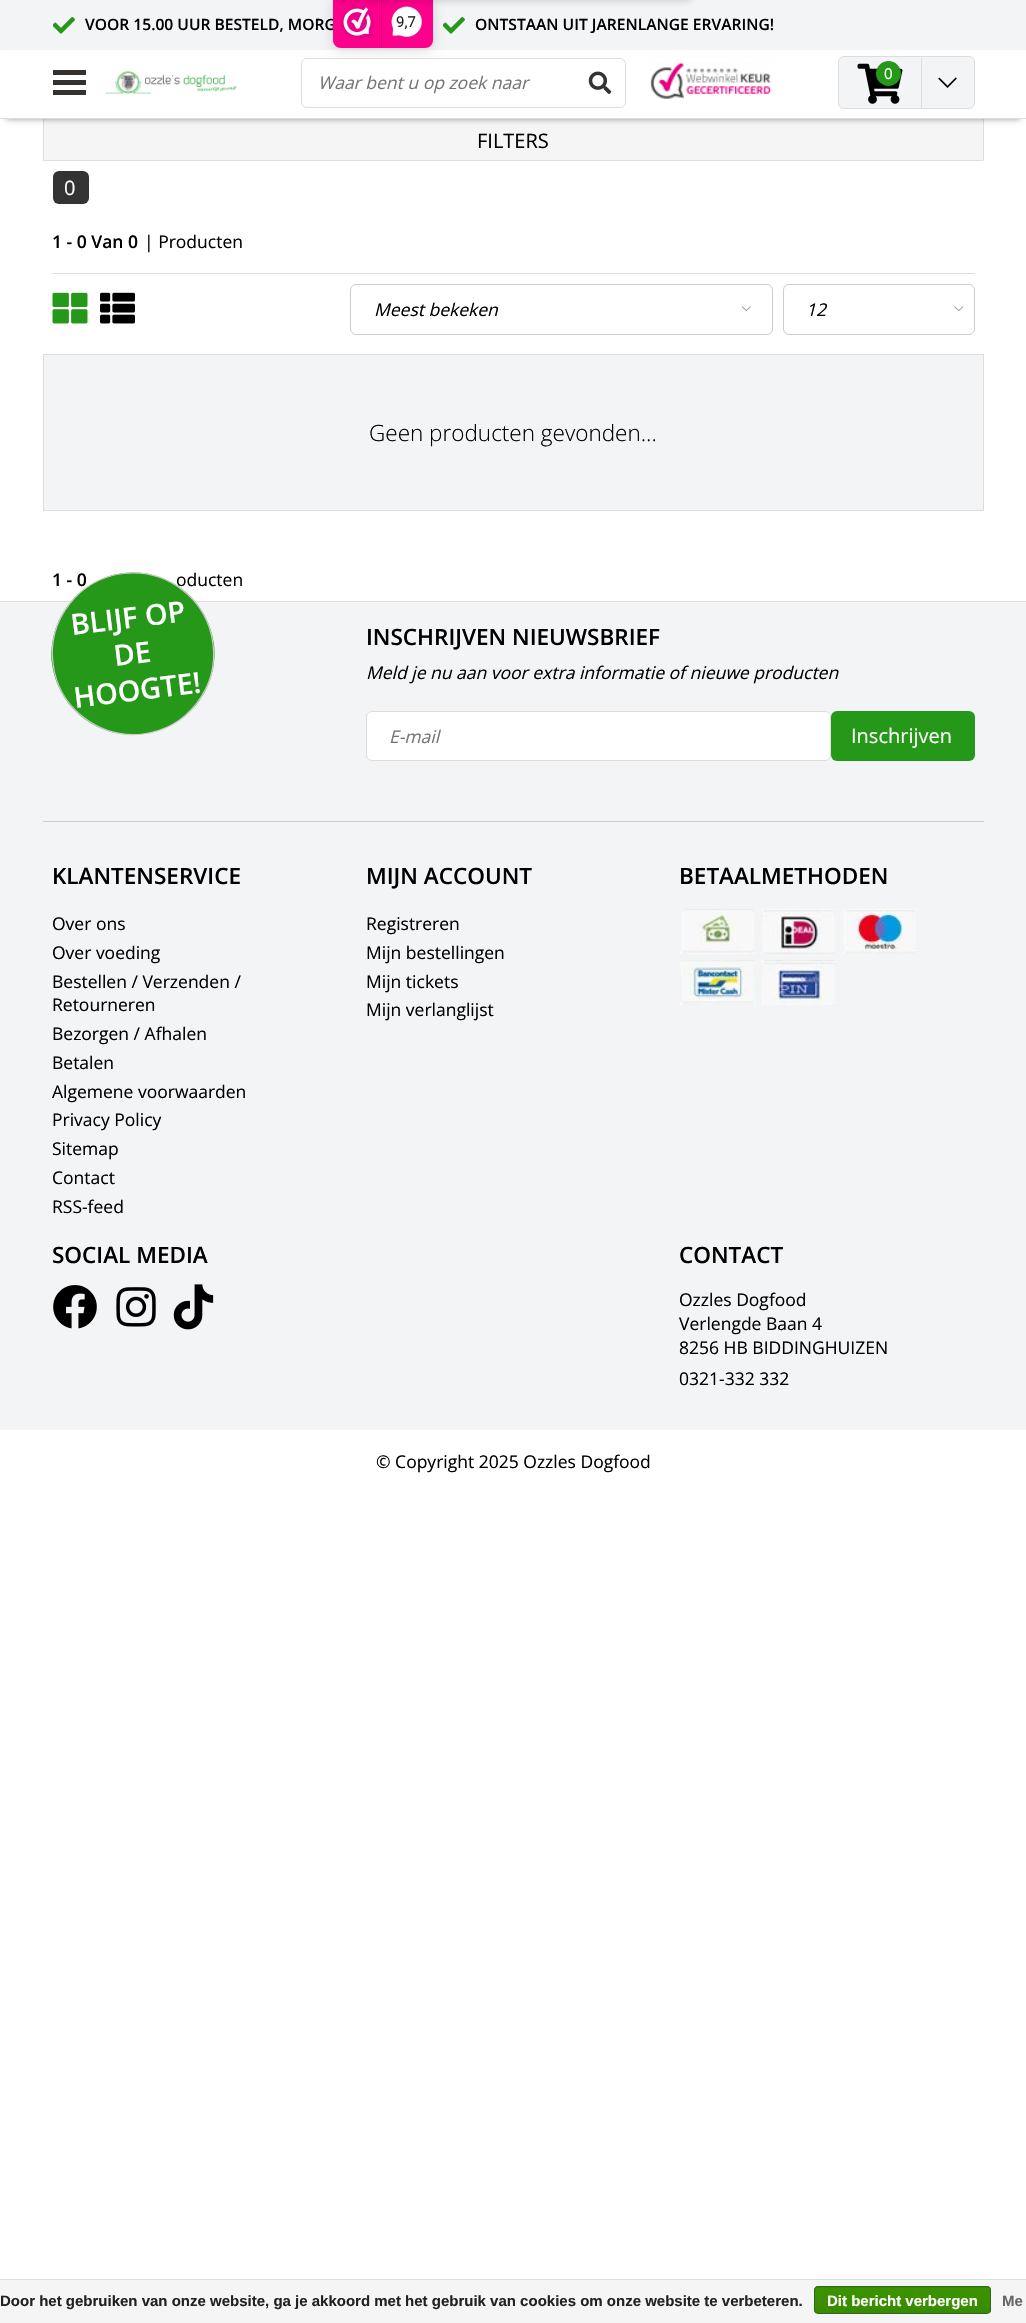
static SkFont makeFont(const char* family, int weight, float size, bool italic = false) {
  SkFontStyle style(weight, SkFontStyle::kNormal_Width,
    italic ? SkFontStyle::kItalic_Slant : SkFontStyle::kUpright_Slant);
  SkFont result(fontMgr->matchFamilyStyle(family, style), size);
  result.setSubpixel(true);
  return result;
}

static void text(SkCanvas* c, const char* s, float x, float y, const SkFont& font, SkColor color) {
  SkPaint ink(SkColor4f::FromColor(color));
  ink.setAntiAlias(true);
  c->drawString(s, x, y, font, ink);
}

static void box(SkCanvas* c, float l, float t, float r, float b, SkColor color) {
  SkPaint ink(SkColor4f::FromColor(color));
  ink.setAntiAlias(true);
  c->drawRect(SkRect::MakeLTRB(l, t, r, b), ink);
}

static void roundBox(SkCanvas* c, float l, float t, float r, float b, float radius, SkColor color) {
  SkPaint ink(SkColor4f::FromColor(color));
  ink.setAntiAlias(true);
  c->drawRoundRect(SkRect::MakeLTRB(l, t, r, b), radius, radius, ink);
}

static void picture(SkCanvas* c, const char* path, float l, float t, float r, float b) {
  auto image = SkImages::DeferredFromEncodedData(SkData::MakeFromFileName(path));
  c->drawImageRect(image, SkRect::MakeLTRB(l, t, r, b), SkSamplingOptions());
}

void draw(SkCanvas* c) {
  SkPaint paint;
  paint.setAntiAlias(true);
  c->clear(0xffffffff);
  box(c, 0, 0, 1026, 50, 0xfff3f4f6);
  picture(c, "img_03.png", 443, 16, 465, 34);
  box(c, 983, 118, 984, 161, 0xffdddddd);
  box(c, 43, 118, 44, 161, 0xffdddddd);
  box(c, 44, 119, 983, 161, 0xfff5f5f5);
  paint.setColor(0x66000000);
  paint.setMaskFilter(SkMaskFilter::MakeBlur(kNormal_SkBlurStyle, 3));
  c->drawRect(SkRect::MakeLTRB(6, 63, 1020, 119), paint);
  paint.setMaskFilter(nullptr);
  box(c, 0, 57, 1026, 118, 0xffffffff);
  paint.setStyle(SkPaint::kStroke_Style);
  paint.setStrokeWidth(1);
  paint.setColor(0xffdddddd);
  c->drawRoundRect(SkRect::MakeLTRB(301.5f, 58.5f, 625.5f, 107.5f), 5.5f, 5.5f, paint);
  roundBox(c, 303, 59, 625, 106, 6, 0xffffffff);
  paint.setStyle(SkPaint::kFill_Style);
  paint.setColor(0x26000000);
  paint.setMaskFilter(SkMaskFilter::MakeBlur(kNormal_SkBlurStyle, 6));
  c->drawRoundRect(SkRect::MakeLTRB(333, 0, 433, 50), 8, 8, paint);
  paint.setMaskFilter(nullptr);
  SkFont face1 = makeFont("Open Sans", 600, 15.6f);
  text(c, "VOOR 15.00 UUR BESTELD, MORG", 85, 30, face1, 0xff000000);
  paint.setColor(0xfffe008c);
  c->drawPath(SkPathBuilder().moveTo(333, -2).lineTo(433, -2).lineTo(433, 40).cubicTo(433, 44.5f, 429.5f, 48, 425, 48).lineTo(341, 48).cubicTo(336.5f, 48, 333, 44.5f, 333, 40).close().detach(), paint);
  picture(c, "img_01.png", 340, 5, 374, 39);
  box(c, 381, 0, 382, 48, 0xffd80077);
  picture(c, "img_02.png", 391, 6, 423, 38);
  paint.setColor(0x1a000000);
  paint.setMaskFilter(SkMaskFilter::MakeBlur(kNormal_SkBlurStyle, 2.5f));
  c->drawRoundRect(SkRect::MakeLTRB(333, -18, 695, 3), 10, 10, paint);
  paint.setMaskFilter(nullptr);
  SkFont face2 = makeFont("Roboto", 400, 15);
  text(c, "9,7", 396, 27, face2, 0xff222222);
  picture(c, "img_03.png", 53, 16, 75, 34);
  text(c, "ONTSTAAN UIT JARENLANGE ERVARING!", 475, 30, face1, 0xff000000);
  box(c, 0, 118, 1026, 119, 0xffdddddd);
  box(c, 53, 70, 86, 75, 0xff34312f);
  box(c, 53, 80, 86, 85, 0xff34312f);
  box(c, 53, 90, 86, 95, 0xff34312f);
  picture(c, "img_04.png", 106, 71, 237, 94);
  SkFont face3 = makeFont("Open Sans", 400, 17.5f, true);
  text(c, "Waar bent u op zoek naar", 318, 89, face3, 0xff757575);
  picture(c, "img_05.png", 588, 71, 612, 94);
  picture(c, "img_06.png", 650, 62, 772, 99);
  paint.setColor(0xfff3f4f6);
  c->drawRoundRect(SkRect::MakeLTRB(838.5f, 56.5f, 974.5f, 108.5f), 5.5f, 5.5f, paint);
  paint.setStyle(SkPaint::kStroke_Style);
  paint.setColor(0xffdddddd);
  c->drawRoundRect(SkRect::MakeLTRB(838.5f, 56.5f, 974.5f, 108.5f), 5.5f, 5.5f, paint);
  picture(c, "img_07.png", 857, 63, 903, 104);
  paint.setStyle(SkPaint::kFill_Style);
  paint.setColor(0xff269819);
  c->drawCircle(888.5f, 73.5f, 12.5f, paint);
  SkFont face4 = makeFont("Open Sans", 400, 15);
  text(c, "0", 884, 79, face4, 0xffffffff);
  paint.setColor(0xffdddddd);
  c->drawPath(SkPathBuilder().moveTo(921, 109).lineTo(921, 58).lineTo(922, 58).lineTo(922, 108).close().detach(), paint);
  picture(c, "img_08.png", 938, 77, 957, 88);
  c->drawPath(SkPathBuilder().moveTo(982, 161).lineTo(44, 161).lineTo(45, 160).lineTo(981, 160).close().detach(), paint);
  SkFont face5 = makeFont("Open Sans", 400, 20);
  text(c, "FILTERS", 477, 148, face5, 0xff000000);
  roundBox(c, 53, 171, 89, 204, 6, 0xff333333);
  text(c, "0", 64, 195, face5, 0xffffffff);
  SkFont face6 = makeFont("Open Sans", 600, 17.5f);
  text(c, "1 - 0 Van 0", 52, 248, face6, 0xff000000);
  SkFont face7 = makeFont("Open Sans", 400, 17.5f);
  text(c, "| Producten", 144, 248, face7, 0xff000000);
  box(c, 53, 273, 975, 274, 0xffdddddd);
  picture(c, "img_09.png", 52, 292, 88, 324);
  picture(c, "img_10.png", 100, 292, 135, 324);
  picture(c, "img_11.png", 741, 306, 751, 311);
  paint.setStyle(SkPaint::kStroke_Style);
  paint.setColor(0xffcccccc);
  c->drawRoundRect(SkRect::MakeLTRB(350.5f, 284.5f, 772.5f, 334.5f), 5.5f, 5.5f, paint);
  text(c, "Meest bekeken", 374, 316, face3, 0xff000000);
  picture(c, "img_12.png", 954, 306, 964, 311);
  c->drawRoundRect(SkRect::MakeLTRB(783.5f, 284.5f, 974.5f, 334.5f), 5.5f, 5.5f, paint);
  text(c, "12", 806, 316, face3, 0xff000000);
  paint.setStyle(SkPaint::kFill_Style);
  paint.setColor(0xfff3f4f6);
  c->drawRect(SkRect::MakeLTRB(43.5f, 354.5f, 983.5f, 510.5f), paint);
  paint.setStyle(SkPaint::kStroke_Style);
  paint.setColor(0xffdddddd);
  c->drawRect(SkRect::MakeLTRB(43.5f, 354.5f, 983.5f, 510.5f), paint);
  SkFont face8 = makeFont("Open Sans", 300, 22.5f);
  text(c, "Geen producten gevonden...", 369, 441, face8, 0xff000000);
  text(c, "1 - 0", 52, 586, face6, 0xff000000);
  text(c, "oducten", 176, 586, face7, 0xff000000);
  box(c, 0, 602, 1026, 1430, 0xfff3f4f6);
  box(c, 0, 601, 1026, 602, 0xffdddddd);
  paint.setStyle(SkPaint::kFill_Style);
  paint.setColor(0xff269819);
  c->drawPath(SkPathBuilder().moveTo(123, 573).cubicTo(168, 568, 208, 599, 214, 644).cubicTo(219, 688, 188, 729, 143, 734).cubicTo(98, 740, 58, 708, 52, 664).cubicTo(47, 619, 79, 579, 123, 573).close().detach(), paint);
  paint.setStyle(SkPaint::kStroke_Style);
  paint.setStrokeWidth(1.2f);
  paint.setColor(0xffcccccc);
  c->drawPath(SkPathBuilder().moveTo(123.5f, 573.5f).cubicTo(167.5f, 568.5f, 207.5f, 599.5f, 213, 644).cubicTo(218.5f, 688, 187, 728.5f, 143, 734).cubicTo(99, 739, 58.5f, 708, 53, 663.5f).cubicTo(47.5f, 619.5f, 79, 579, 123.5f, 573.5f).close().detach(), paint);
  SkFont face9 = makeFont("Open Sans", 600, 28.75f);
  c->save();
  c->rotate(-7, 72, 635);
  text(c, "BLIJF OP", 72, 635, face9, 0xffffffff);
  c->restore();
  c->save();
  c->rotate(-7, 115, 666);
  text(c, "DE", 115, 666, face9, 0xffffffff);
  c->restore();
  c->save();
  c->rotate(-7, 75, 708);
  text(c, "HOOGTE!", 75, 708, face9, 0xffffffff);
  c->restore();
  SkFont face10 = makeFont("Open Sans", 600, 22.5f);
  text(c, "INSCHRIJVEN NIEUWSBRIEF", 366, 645, face10, 0xff000000);
  text(c, "Meld je nu aan voor extra informatie of nieuwe producten", 366, 679, face3, 0xff000000);
  paint.setStyle(SkPaint::kFill_Style);
  paint.setColor(0xffffffff);
  c->drawRoundRect(SkRect::MakeLTRB(366.5f, 711.5f, 830.5f, 760.5f), 5.5f, 5.5f, paint);
  paint.setStyle(SkPaint::kStroke_Style);
  paint.setStrokeWidth(1);
  paint.setColor(0xffdddddd);
  c->drawRoundRect(SkRect::MakeLTRB(366.5f, 711.5f, 830.5f, 760.5f), 5.5f, 5.5f, paint);
  text(c, "E-mail", 389, 743, face3, 0xff757575);
  roundBox(c, 831, 711, 975, 761, 6, 0xff269819);
  text(c, "Inschrijven", 851, 743, face5, 0xffffffff);
  box(c, 43, 821, 984, 822, 0xffcccccc);
  text(c, "KLANTENSERVICE", 52, 884, face10, 0xff000000);
  text(c, "Over ons", 52, 930, face7, 0xff000000);
  text(c, "Over voeding", 52, 959, face7, 0xff000000);
  text(c, "Bestellen / Verzenden /", 52, 988, face7, 0xff000000);
  text(c, "Retourneren", 52, 1011, face7, 0xff000000);
  text(c, "Bezorgen / Afhalen", 52, 1040, face7, 0xff000000);
  text(c, "Betalen", 52, 1069, face7, 0xff000000);
  text(c, "Algemene voorwaarden", 52, 1098, face7, 0xff000000);
  text(c, "Privacy Policy", 52, 1126, face7, 0xff000000);
  text(c, "Sitemap", 52, 1155, face7, 0xff000000);
  text(c, "Contact", 52, 1184, face7, 0xff000000);
  text(c, "RSS-feed", 52, 1213, face7, 0xff000000);
  text(c, "MIJN ACCOUNT", 366, 884, face10, 0xff000000);
  text(c, "Registreren", 366, 930, face7, 0xff000000);
  text(c, "Mijn bestellingen", 366, 959, face7, 0xff000000);
  text(c, "Mijn tickets", 366, 988, face7, 0xff000000);
  text(c, "Mijn verlanglijst", 366, 1016, face7, 0xff000000);
  text(c, "BETAALMETHODEN", 679, 884, face10, 0xff000000);
  picture(c, "img_13.png", 680, 908, 755, 954);
  picture(c, "img_14.png", 761, 909, 836, 954);
  picture(c, "img_15.png", 842, 909, 918, 954);
  picture(c, "img_16.png", 680, 960, 755, 1005);
  picture(c, "img_17.png", 761, 960, 836, 1005);
  text(c, "SOCIAL MEDIA", 52, 1263, face10, 0xff000000);
  picture(c, "img_18.png", 53, 1285, 97, 1329);
  picture(c, "img_19.png", 116, 1287, 156, 1327);
  picture(c, "img_20.png", 173, 1284, 214, 1330);
  text(c, "CONTACT", 679, 1263, face10, 0xff000000);
  text(c, "Ozzles Dogfood", 679, 1306, face7, 0xff000000);
  text(c, "Verlengde Baan 4", 679, 1330, face7, 0xff000000);
  text(c, "8256 HB BIDDINGHUIZEN", 679, 1354, face7, 0xff000000);
  text(c, "0321-332 332", 679, 1385, face7, 0xff000000);
  text(c, "© Copyright 2025 Ozzles Dogfood", 376, 1468, face7, 0xff000000);
  box(c, 0, 2280, 1026, 2323, 0xfff5f5f5);
  box(c, 0, 2279, 1026, 2280, 0xffdddddd);
  SkFont face11 = makeFont("Liberation Sans", 700, 15);
  text(c, "Door het gebruiken van onze website, ga je akkoord met het gebruik van cookies om onze website te verbeteren.", 0, 2306, face11, 0xff222222);
  c->save();
  c->clipPath(SkPathBuilder().moveTo(818, 2286).lineTo(987, 2286).cubicTo(989, 2286, 991, 2288, 991, 2290).lineTo(991, 2310).cubicTo(991, 2312, 989, 2314, 987, 2314).lineTo(818, 2314).cubicTo(816, 2314, 814, 2312, 814, 2310).lineTo(814, 2290).cubicTo(814, 2288, 816, 2286, 818, 2286).close().detach(), true);
  paint.setStyle(SkPaint::kFill_Style);
  {
    const SkColor colors[] = {0xff3c9300, 0xff398a00};
    const float stops[] = {0, 1};
    const SkPoint ends[] = {{903, 2263}, {903, 2288}};
    paint.setShader(SkGradientShader::MakeLinear(ends, colors, stops, 2, SkTileMode::kClamp));
    paint.setAlpha(255);
  }
  c->drawRect(SkRect::MakeLTRB(814, 2286, 991, 2288), paint);
  {
    const SkColor colors[] = {0xff3c9300, 0xff398a00};
    const float stops[] = {0, 1};
    const SkPoint ends[] = {{903, 2288}, {903, 2313}};
    paint.setShader(SkGradientShader::MakeLinear(ends, colors, stops, 2, SkTileMode::kClamp));
    paint.setAlpha(255);
  }
  c->drawRect(SkRect::MakeLTRB(814, 2288, 991, 2313), paint);
  c->restore();
  paint.setStyle(SkPaint::kStroke_Style);
  paint.setShader(nullptr);
  paint.setColor(0xff29691d);
  c->drawRoundRect(SkRect::MakeLTRB(814.5f, 2286.5f, 990.5f, 2313.5f), 3.5f, 3.5f, paint);
  text(c, "Dit bericht verbergen", 827, 2306, face11, 0xffffffff);
  text(c, "Me", 1002, 2306, face11, 0xff666666);
}
